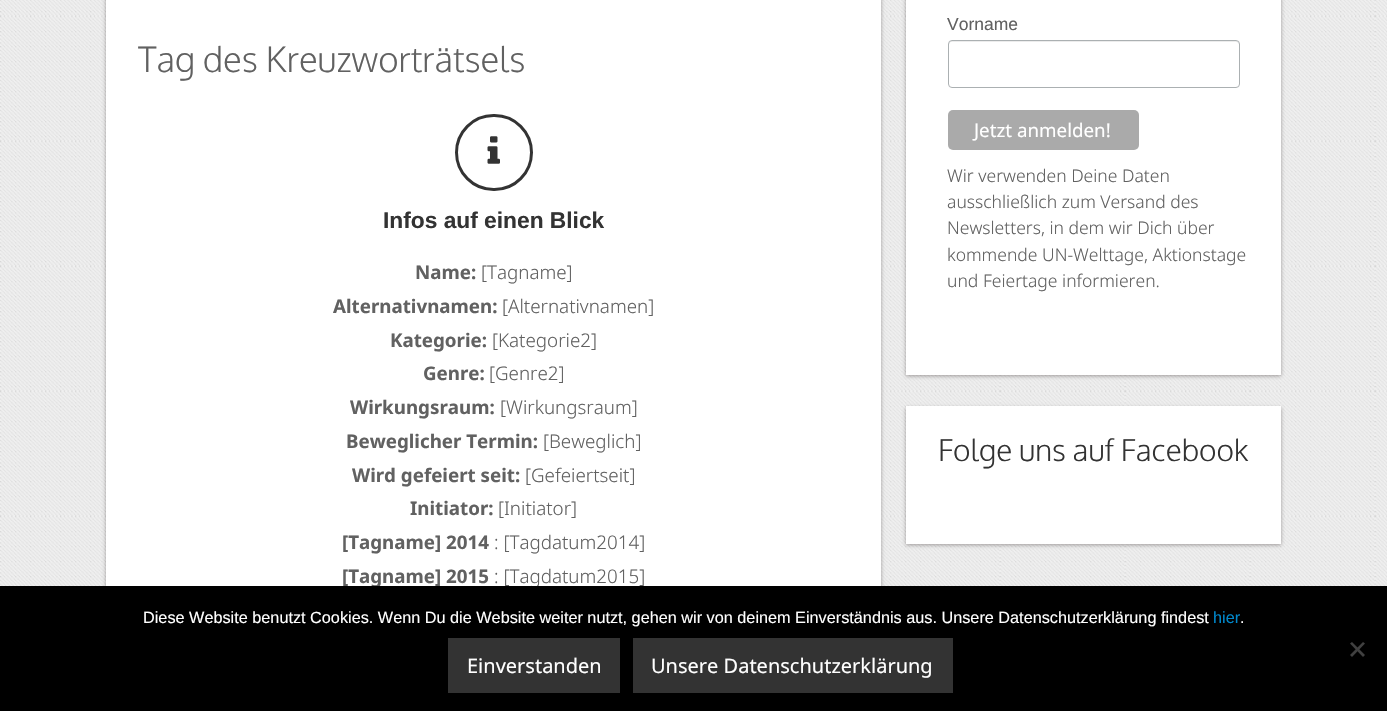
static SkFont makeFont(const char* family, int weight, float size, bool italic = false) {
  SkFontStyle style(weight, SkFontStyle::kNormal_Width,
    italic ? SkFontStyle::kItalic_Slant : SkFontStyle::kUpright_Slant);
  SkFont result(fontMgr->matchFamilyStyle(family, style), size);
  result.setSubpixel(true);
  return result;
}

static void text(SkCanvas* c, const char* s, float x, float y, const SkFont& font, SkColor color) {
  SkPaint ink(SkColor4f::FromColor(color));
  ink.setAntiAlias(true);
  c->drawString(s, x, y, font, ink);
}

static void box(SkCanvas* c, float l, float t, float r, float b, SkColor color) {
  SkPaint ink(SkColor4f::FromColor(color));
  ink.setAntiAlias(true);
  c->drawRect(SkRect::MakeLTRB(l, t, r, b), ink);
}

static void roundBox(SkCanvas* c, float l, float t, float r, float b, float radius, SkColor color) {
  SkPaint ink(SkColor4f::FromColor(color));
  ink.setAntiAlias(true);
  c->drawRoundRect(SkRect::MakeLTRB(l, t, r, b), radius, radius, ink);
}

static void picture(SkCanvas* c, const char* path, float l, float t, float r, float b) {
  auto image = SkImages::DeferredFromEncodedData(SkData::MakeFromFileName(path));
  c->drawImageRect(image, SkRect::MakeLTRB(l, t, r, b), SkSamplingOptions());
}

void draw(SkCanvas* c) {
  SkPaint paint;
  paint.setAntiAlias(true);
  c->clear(0xffffffff);
  picture(c, "img_01.png", 0, 0, 1387, 586);
  paint.setColor(0x66221919);
  paint.setMaskFilter(SkMaskFilter::MakeBlur(kNormal_SkBlurStyle, 2));
  c->drawRect(SkRect::MakeLTRB(106, -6, 881, 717), paint);
  paint.setMaskFilter(nullptr);
  box(c, 106, 0, 881, 586, 0xffffffff);
  SkFont face1 = makeFont("Oxygen", 300, 35);
  text(c, "Tag des Kreuzworträtsels", 138, 72, face1, 0xff616161);
  paint.setStyle(SkPaint::kStroke_Style);
  paint.setStrokeWidth(3);
  paint.setColor(0xff333333);
  c->drawRoundRect(SkRect::MakeLTRB(456.5f, 115.5f, 531.5f, 189.5f), 37, 37, paint);
  picture(c, "img_02.png", 487, 136, 500, 164);
  SkFont face2 = makeFont("Liberation Sans", 700, 22.75f);
  text(c, "Infos auf einen Blick", 383, 228, face2, 0xff333333);
  SkFont face3 = makeFont("Noto Sans", 700, 18.75f);
  text(c, "Name:", 415, 279, face3, 0xff616161);
  SkFont face4 = makeFont("Noto Sans", 300, 18.75f);
  text(c, "[Tagname]", 481, 279, face4, 0xff616161);
  text(c, "Alternativnamen:", 333, 313, face3, 0xff616161);
  text(c, "[Alternativnamen]", 502, 313, face4, 0xff616161);
  text(c, "Kategorie:", 390, 347, face3, 0xff616161);
  text(c, "[Kategorie2]", 492, 347, face4, 0xff616161);
  text(c, "Genre:", 423, 380, face3, 0xff616161);
  text(c, "[Genre2]", 489, 380, face4, 0xff616161);
  text(c, "Wirkungsraum:", 350, 414, face3, 0xff616161);
  text(c, "[Wirkungsraum]", 500, 414, face4, 0xff616161);
  text(c, "Beweglicher Termin:", 346, 448, face3, 0xff616161);
  text(c, "[Beweglich]", 543, 448, face4, 0xff616161);
  text(c, "Wird gefeiert seit:", 352, 482, face3, 0xff616161);
  text(c, "[Gefeiertseit]", 525, 482, face4, 0xff616161);
  text(c, "Initiator:", 410, 515, face3, 0xff616161);
  text(c, "[Initiator]", 498, 515, face4, 0xff616161);
  text(c, "[Tagname] 2014", 342, 549, face3, 0xff616161);
  text(c, ": [Tagdatum2014]", 494, 549, face4, 0xff616161);
  text(c, "[Tagname] 2015", 342, 583, face3, 0xff616161);
  text(c, ": [Tagdatum2015]", 494, 583, face4, 0xff616161);
  paint.setStyle(SkPaint::kFill_Style);
  paint.setColor(0x66221919);
  paint.setMaskFilter(SkMaskFilter::MakeBlur(kNormal_SkBlurStyle, 2));
  c->drawRect(SkRect::MakeLTRB(906, -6, 1281, 376), paint);
  paint.setMaskFilter(nullptr);
  box(c, 906, 0, 1281, 375, 0xffffffff);
  SkFont face5 = makeFont("Liberation Sans", 400, 17.5f);
  text(c, "Vorname", 947, 30, face5, 0xff616161);
  paint.setColor(0xffececec);
  c->drawPath(SkPathBuilder().moveTo(951, 42).lineTo(1236, 42).cubicTo(1238, 42, 1239, 44, 1239, 45).cubicTo(1239, 43, 1239, 41, 1236, 41).lineTo(952, 41).cubicTo(949, 41, 949, 43, 949, 45).cubicTo(949, 44, 950, 42, 951, 42).close().detach(), paint);
  paint.setStyle(SkPaint::kStroke_Style);
  paint.setStrokeWidth(1);
  paint.setColor(0xffabb0b2);
  c->drawRoundRect(SkRect::MakeLTRB(948.5f, 40.5f, 1239.5f, 87.5f), 3.5f, 3.5f, paint);
  roundBox(c, 948, 110, 1139, 150, 5, 0xffaaaaaa);
  SkFont face6 = makeFont("Noto Sans", 400, 18.75f);
  text(c, "Jetzt anmelden!", 974, 137, face6, 0xffffffff);
  SkFont face7 = makeFont("Noto Sans", 300, 17.5f);
  text(c, "Wir verwenden Deine Daten", 947, 182, face7, 0xff616161);
  text(c, "ausschließlich zum Versand des", 947, 208, face7, 0xff616161);
  text(c, "Newsletters, in dem wir Dich über", 947, 234, face7, 0xff616161);
  text(c, "kommende UN-Welttage, Aktionstage", 947, 261, face7, 0xff616161);
  text(c, "und Feiertage informieren.", 947, 287, face7, 0xff616161);
  paint.setStyle(SkPaint::kFill_Style);
  paint.setColor(0x66221919);
  paint.setMaskFilter(SkMaskFilter::MakeBlur(kNormal_SkBlurStyle, 2));
  c->drawRect(SkRect::MakeLTRB(906, 408, 1281, 545), paint);
  paint.setMaskFilter(nullptr);
  box(c, 906, 406, 1281, 544, 0xffffffff);
  SkFont face8 = makeFont("Oxygen", 300, 30);
  text(c, "Folge uns auf Facebook", 938, 461, face8, 0xff333333);
  box(c, 0, 586, 1387, 711, 0xff000000);
  SkFont face9 = makeFont("Liberation Sans", 400, 16.25f);
  text(c, "Diese Website benutzt Cookies. Wenn Du die Website weiter nutzt, gehen wir von deinem Einverständnis aus. Unsere Datenschutzerklärung findest", 143, 623, face9, 0xffffffff);
  text(c, "hier", 1213, 623, face9, 0xff0088cc);
  text(c, ".", 1240, 623, face9, 0xffffffff);
  paint.setColor(0xff404040);
  c->drawPath(SkPathBuilder().moveTo(1363, 642).lineTo(1365, 643.5f).lineTo(1352, 657).lineTo(1350, 655).close().detach(), paint);
  c->drawPath(SkPathBuilder().moveTo(1350, 643.5f).lineTo(1352, 642).lineTo(1365, 655).lineTo(1363, 657).close().detach(), paint);
  box(c, 448, 638, 620, 693, 0xff333333);
  SkFont face10 = makeFont("Noto Sans", 400, 20);
  text(c, "Einverstanden", 467, 673, face10, 0xffffffff);
  box(c, 633, 638, 953, 693, 0xff333333);
  text(c, "Unsere Datenschutzerklärung", 651, 673, face10, 0xffffffff);
}
